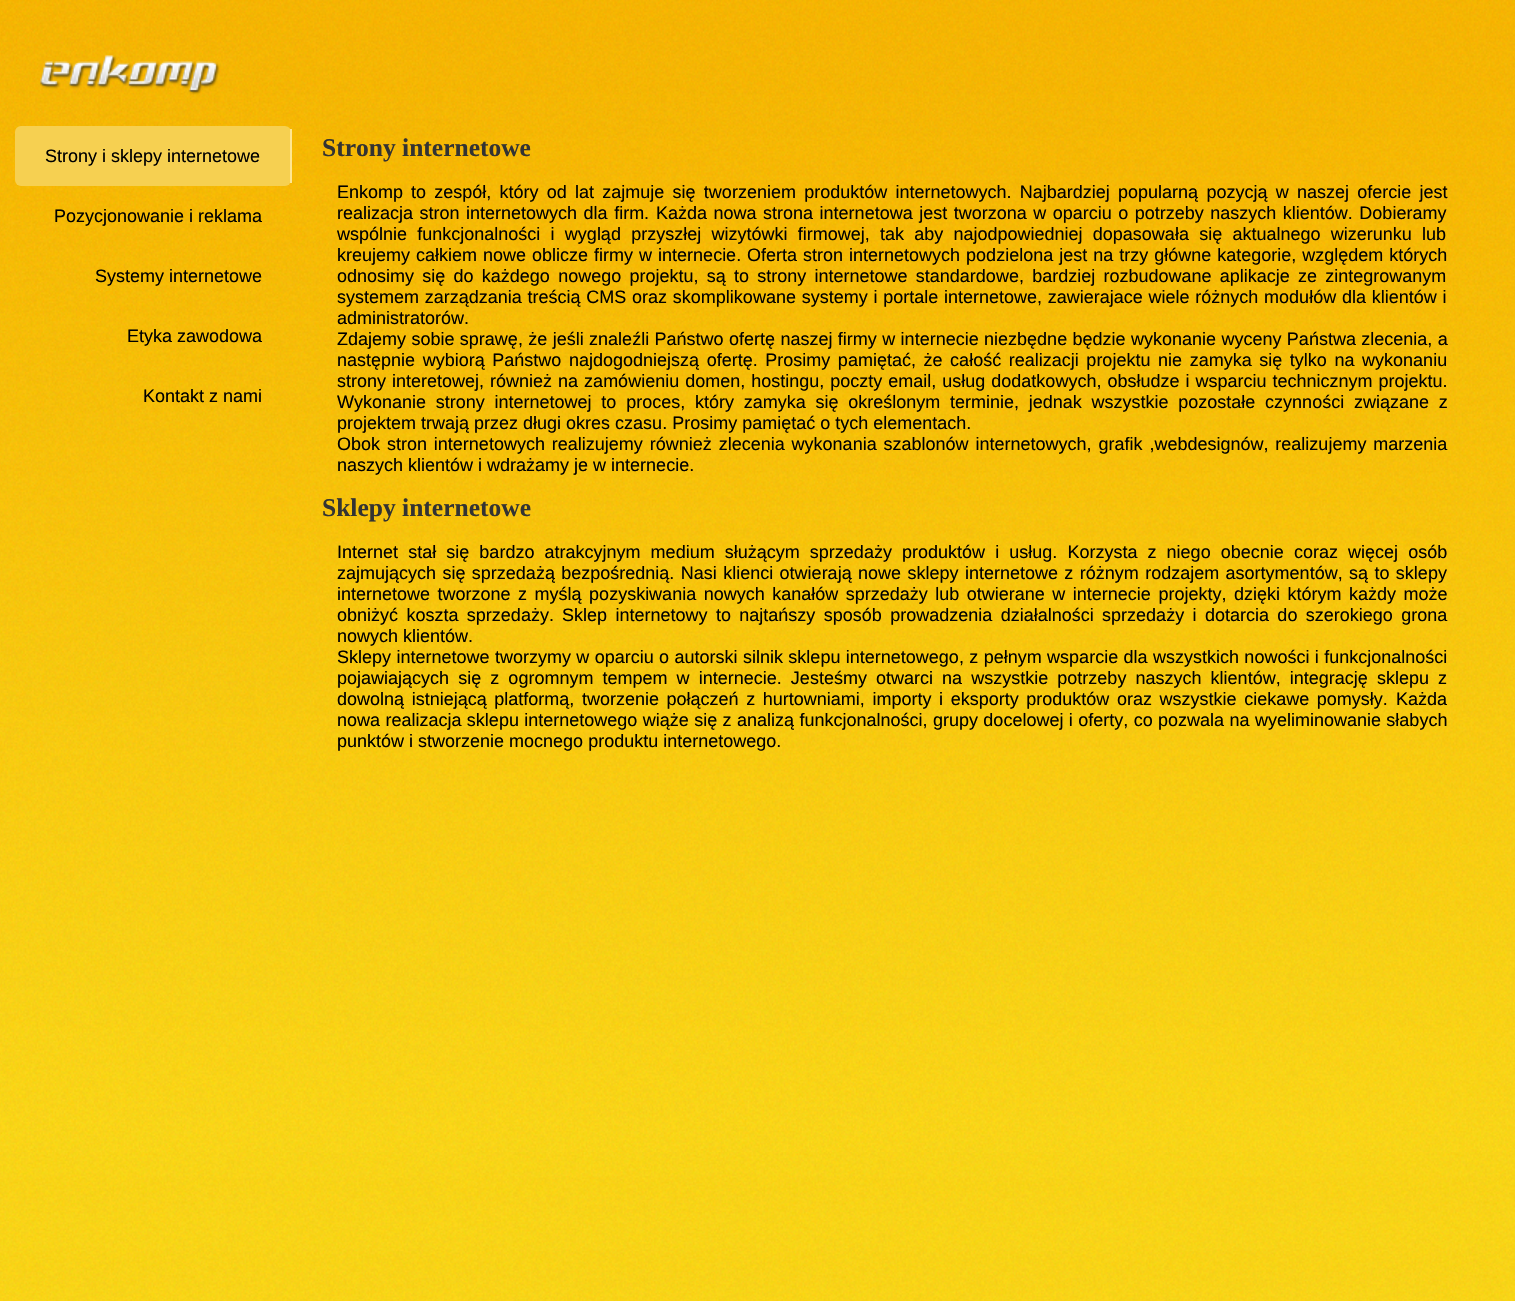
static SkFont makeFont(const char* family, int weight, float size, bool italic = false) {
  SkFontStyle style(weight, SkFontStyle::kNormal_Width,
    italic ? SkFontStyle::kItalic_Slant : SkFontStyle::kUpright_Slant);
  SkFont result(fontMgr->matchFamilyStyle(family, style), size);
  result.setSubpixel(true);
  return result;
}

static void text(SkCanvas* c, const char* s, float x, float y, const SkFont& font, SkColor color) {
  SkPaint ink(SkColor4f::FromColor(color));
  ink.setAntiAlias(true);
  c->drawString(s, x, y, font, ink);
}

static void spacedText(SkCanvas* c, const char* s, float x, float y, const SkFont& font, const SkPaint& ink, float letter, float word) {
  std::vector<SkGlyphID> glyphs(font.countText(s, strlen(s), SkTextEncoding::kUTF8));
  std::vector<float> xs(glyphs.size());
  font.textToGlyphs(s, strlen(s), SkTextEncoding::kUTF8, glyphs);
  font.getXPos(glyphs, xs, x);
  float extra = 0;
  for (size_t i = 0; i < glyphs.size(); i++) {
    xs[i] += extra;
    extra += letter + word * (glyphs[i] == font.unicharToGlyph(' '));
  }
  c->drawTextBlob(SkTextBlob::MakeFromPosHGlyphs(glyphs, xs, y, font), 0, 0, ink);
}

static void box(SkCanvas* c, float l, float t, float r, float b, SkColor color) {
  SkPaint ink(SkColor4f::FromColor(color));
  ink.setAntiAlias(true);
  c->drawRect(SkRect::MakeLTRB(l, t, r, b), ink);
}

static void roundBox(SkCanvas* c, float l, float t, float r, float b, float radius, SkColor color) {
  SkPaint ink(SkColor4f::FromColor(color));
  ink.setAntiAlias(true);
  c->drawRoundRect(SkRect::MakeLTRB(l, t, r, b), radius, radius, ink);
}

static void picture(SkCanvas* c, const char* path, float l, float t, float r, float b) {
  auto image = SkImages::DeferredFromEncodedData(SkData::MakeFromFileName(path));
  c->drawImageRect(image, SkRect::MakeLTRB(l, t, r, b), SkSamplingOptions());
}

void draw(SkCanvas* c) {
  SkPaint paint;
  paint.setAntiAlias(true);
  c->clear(0xffffffff);
  picture(c, "img_01.png", 0, 1152, 1515, 1301);
  picture(c, "img_02.png", 0, 0, 1515, 1152);
  picture(c, "img_03.png", 40, 56, 219, 95);
  picture(c, "img_04.png", 40, 55, 220, 94);
  roundBox(c, 15, 126, 291, 186, 6, 0xfff6d051);
  box(c, 290, 129, 292, 183, 0xffffe692);
  SkFont face1 = makeFont("Liberation Sans", 400, 18);
  text(c, "Strony i sklepy internetowe", 45, 162, face1, 0xff000000);
  text(c, "Pozycjonowanie i reklama", 54, 222, face1, 0xff000000);
  text(c, "Systemy internetowe", 95, 282, face1, 0xff000000);
  text(c, "Etyka zawodowa", 127, 342, face1, 0xff000000);
  text(c, "Kontakt z nami", 143, 402, face1, 0xff000000);
  SkFont face2 = makeFont("Liberation Serif", 700, 25.5f);
  text(c, "Strony internetowe", 322, 156, face2, 0xff333333);
  text(c, "Enkomp", 337, 198, face1, 0xff000000);
  paint.setColor(0xff000000);
  spacedText(c, "to zespół, który od lat zajmuje się tworzeniem produktów internetowych. Najbardziej popularną pozycją w naszej ofercie jest", 411, 198, face1, paint, 0, 3.25f);
  spacedText(c, "realizacja stron internetowych dla firm.", 337, 219, face1, paint, 0, 1.5f);
  spacedText(c, "Każda nowa strona internetowa jest tworzona w oparciu o potrzeby naszych klientów. Dobieramy", 656, 219, face1, paint, 0, 1.5f);
  spacedText(c, "wspólnie funkcjonalności i wygląd przyszłej wizytówki firmowej, tak aby najodpowiedniej dopasowała się aktualnego wizerunku lub", 337, 240, face1, paint, 0, 5.25f);
  spacedText(c, "kreujemy całkiem nowe oblicze firmy w internecie.", 337, 261, face1, paint, 0, 1);
  spacedText(c, "Oferta stron internetowych podzielona jest na trzy główne kategorie, względem których", 747, 261, face1, paint, 0, 1);
  spacedText(c, "odnosimy się do każdego nowego projektu, są to strony internetowe standardowe, bardziej rozbudowane aplikacje ze zintegrowanym", 337, 282, face1, paint, 0, 3.25f);
  spacedText(c, "systemem zarządzania treścią CMS oraz skomplikowane systemy i portale internetowe, zawierajace wiele różnych modułów dla klientów i", 337, 303, face1, paint, 0, 0.75f);
  text(c, "administratorów.", 337, 324, face1, 0xff000000);
  spacedText(c, "Zdajemy sobie sprawę, że jeśli znaleźli Państwo ofertę naszej firmy w internecie niezbędne będzie wykonanie wyceny Państwa zlecenia, a", 337, 345, face1, paint, 0, 0.4f);
  spacedText(c, "następnie wybiorą Państwo najdogodniejszą ofertę. Prosimy pamiętać, że całość realizacji projektu nie zamyka się tylko na wykonaniu", 337, 366, face1, paint, 0, 2.6f);
  spacedText(c, "strony interetowej, również na zamówieniu domen, hostingu, poczty email, usług dodatkowych, obsłudze i wsparciu technicznym projektu.", 337, 387, face1, paint, 0, 1);
  spacedText(c, "Wykonanie strony internetowej to proces, który zamyka się określonym terminie, jednak wszystkie pozostałe czynności związane z", 337, 408, face1, paint, 0, 4.75f);
  text(c, "projektem trwają przez długi okres czasu. Prosimy pamiętać o tych elementach.", 337, 429, face1, 0xff000000);
  spacedText(c, "Obok stron internetowych realizujemy również zlecenia wykonania szablonów internetowych, grafik ,webdesignów, realizujemy marzenia", 337, 450, face1, paint, 0, 1.9f);
  text(c, "naszych klientów i wdrażamy je w internecie.", 337, 471, face1, 0xff000000);
  text(c, "Sklepy internetowe", 322, 516, face2, 0xff333333);
  spacedText(c, "Internet stał się bardzo atrakcyjnym medium służącym sprzedaży produktów i usług. Korzysta z niego obecnie coraz więcej osób", 337, 558, face1, paint, 0, 5.1f);
  spacedText(c, "zajmujących się sprzedażą bezpośrednią. Nasi klienci otwierają nowe sklepy internetowe z różnym rodzajem asortymentów, są to sklepy", 337, 579, face1, paint, 0, 1.4f);
  spacedText(c, "internetowe tworzone z myślą pozyskiwania nowych kanałów sprzedaży lub otwierane w internecie projekty, dzięki którym każdy może", 337, 600, face1, paint, 0, 2.5f);
  spacedText(c, "obniżyć koszta sprzedaży.", 337, 621, face1, paint, 0, 3.4f);
  spacedText(c, "Sklep internetowy to najtańszy sposób prowadzenia działalności sprzedaży i dotarcia do szerokiego grona", 562, 621, face1, paint, 0, 3.4f);
  text(c, "nowych klientów.", 337, 642, face1, 0xff000000);
  spacedText(c, "Sklepy internetowe tworzymy w oparciu o autorski silnik sklepu internetowego, z pełnym wsparcie dla wszystkich nowości i funkcjonalności", 337, 663, face1, paint, 0, 0.4f);
  spacedText(c, "pojawiających się z ogromnym tempem w internecie. Jesteśmy otwarci na wszystkie potrzeby naszych klientów, integrację sklepu z", 337, 684, face1, paint, 0, 4.1f);
  spacedText(c, "dowolną istniejącą platformą, tworzenie połączeń z hurtowniami, importy i eksporty produktów oraz wszystkie ciekawe pomysły.", 337, 705, face1, paint, 0, 2.6f);
  text(c, "Każda", 1396, 705, face1, 0xff000000);
  spacedText(c, "nowa realizacja sklepu internetowego wiąże się z analizą funkcjonalności, grupy docelowej i oferty, co pozwala na wyeliminowanie słabych", 337, 726, face1, paint, 0, 0.4f);
  text(c, "punktów i stworzenie mocnego produktu internetowego.", 337, 747, face1, 0xff000000);
}
